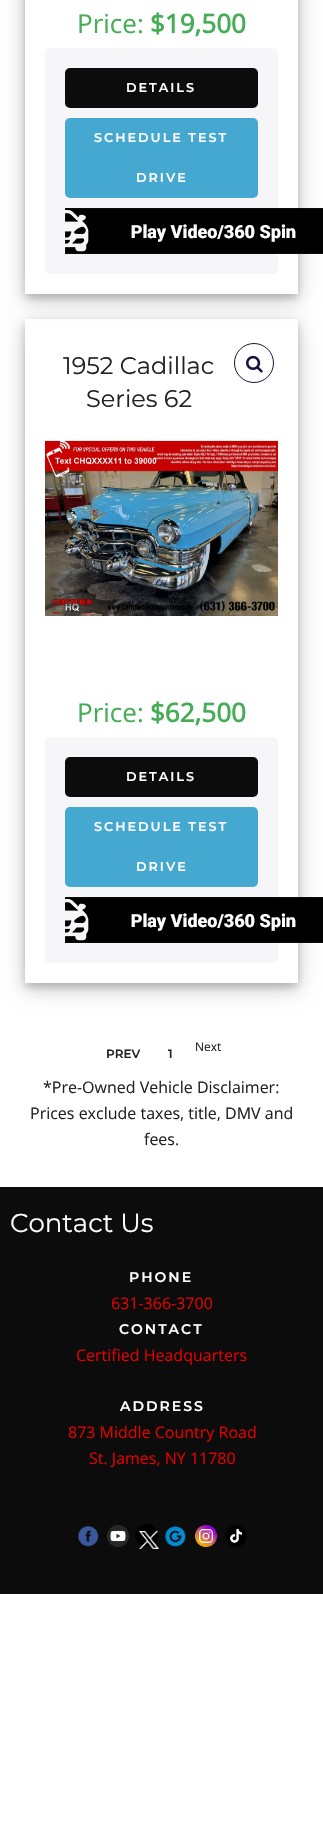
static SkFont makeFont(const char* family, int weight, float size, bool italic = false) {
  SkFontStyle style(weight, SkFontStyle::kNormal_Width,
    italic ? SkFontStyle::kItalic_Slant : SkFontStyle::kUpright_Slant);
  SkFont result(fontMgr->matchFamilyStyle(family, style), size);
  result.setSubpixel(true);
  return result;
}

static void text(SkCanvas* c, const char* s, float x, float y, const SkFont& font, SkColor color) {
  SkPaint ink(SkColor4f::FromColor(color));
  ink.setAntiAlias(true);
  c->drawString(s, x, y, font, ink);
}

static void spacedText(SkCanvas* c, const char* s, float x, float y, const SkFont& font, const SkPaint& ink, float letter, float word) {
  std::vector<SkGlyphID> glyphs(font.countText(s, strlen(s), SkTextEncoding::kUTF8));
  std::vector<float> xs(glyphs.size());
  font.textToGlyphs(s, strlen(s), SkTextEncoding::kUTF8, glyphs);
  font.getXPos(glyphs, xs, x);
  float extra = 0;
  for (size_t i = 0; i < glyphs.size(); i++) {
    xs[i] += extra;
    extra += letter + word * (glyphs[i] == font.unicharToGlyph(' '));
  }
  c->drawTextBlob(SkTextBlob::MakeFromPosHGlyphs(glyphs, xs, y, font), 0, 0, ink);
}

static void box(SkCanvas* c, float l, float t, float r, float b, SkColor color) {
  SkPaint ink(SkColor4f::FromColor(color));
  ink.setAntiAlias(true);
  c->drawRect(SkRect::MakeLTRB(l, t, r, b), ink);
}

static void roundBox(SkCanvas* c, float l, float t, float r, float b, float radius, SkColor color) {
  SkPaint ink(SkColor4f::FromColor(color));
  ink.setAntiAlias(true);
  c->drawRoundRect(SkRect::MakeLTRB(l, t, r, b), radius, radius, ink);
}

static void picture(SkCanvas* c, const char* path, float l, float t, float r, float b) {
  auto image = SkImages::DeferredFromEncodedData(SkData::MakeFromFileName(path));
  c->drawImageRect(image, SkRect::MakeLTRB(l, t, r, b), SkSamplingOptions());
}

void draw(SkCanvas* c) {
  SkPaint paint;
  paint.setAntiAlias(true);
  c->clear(0xffffffff);
  c->save();
  c->clipPath(SkPathBuilder(SkPathFillType::kEvenOdd).moveTo(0, 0).lineTo(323, 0).lineTo(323, 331).lineTo(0, 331).close().moveTo(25, -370).lineTo(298, -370).lineTo(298, 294).lineTo(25, 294).close().detach(), true);
  paint.setColor(0x30000000);
  paint.setMaskFilter(SkMaskFilter::MakeBlur(kNormal_SkBlurStyle, 10));
  c->drawRect(SkRect::MakeLTRB(25, -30, 298, 300), paint);
  paint.setMaskFilter(nullptr);
  c->restore();
  c->save();
  c->clipPath(SkPathBuilder(SkPathFillType::kEvenOdd).moveTo(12, 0).lineTo(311, 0).lineTo(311, 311).lineTo(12, 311).close().moveTo(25, -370).lineTo(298, -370).lineTo(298, 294).lineTo(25, 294).close().detach(), true);
  paint.setColor(0x33000000);
  paint.setMaskFilter(SkMaskFilter::MakeBlur(kNormal_SkBlurStyle, 4));
  c->drawRect(SkRect::MakeLTRB(25, -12, 298, 298), paint);
  paint.setMaskFilter(nullptr);
  c->restore();
  SkFont face1 = makeFont("Open Sans", 400, 26);
  text(c, "Price:", 77, 33, face1, 0xff45ad55);
  SkFont face2 = makeFont("Open Sans", 700, 26);
  text(c, "$19,500", 150, 33, face2, 0xff45ad55);
  roundBox(c, 45, 48, 278, 274, 5, 0xfff6f6f9);
  roundBox(c, 65, 68, 258, 108, 5, 0xff0c0c0c);
  SkFont face3 = makeFont("Montserrat", 600, 12.75f);
  paint.setColor(0xffffffff);
  spacedText(c, "DETAILS", 126, 92, face3, paint, 2, 0);
  roundBox(c, 65, 118, 258, 198, 5, 0xff45a8d1);
  spacedText(c, "SCHEDULE TEST", 94, 142, face3, paint, 2, 0);
  spacedText(c, "DRIVE", 136, 182, face3, paint, 2, 0);
  picture(c, "img_01.png", 65, 208, 323, 254);
  c->save();
  c->clipPath(SkPathBuilder(SkPathFillType::kEvenOdd).moveTo(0, 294).lineTo(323, 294).lineTo(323, 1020).lineTo(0, 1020).close().moveTo(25, 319).lineTo(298, 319).lineTo(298, 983).lineTo(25, 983).close().detach(), true);
  paint.setColor(0x30000000);
  paint.setMaskFilter(SkMaskFilter::MakeBlur(kNormal_SkBlurStyle, 10));
  c->drawRect(SkRect::MakeLTRB(25, 325, 298, 989), paint);
  paint.setMaskFilter(nullptr);
  c->restore();
  c->save();
  c->clipPath(SkPathBuilder(SkPathFillType::kEvenOdd).moveTo(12, 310).lineTo(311, 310).lineTo(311, 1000).lineTo(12, 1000).close().moveTo(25, 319).lineTo(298, 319).lineTo(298, 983).lineTo(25, 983).close().detach(), true);
  paint.setColor(0x33000000);
  paint.setMaskFilter(SkMaskFilter::MakeBlur(kNormal_SkBlurStyle, 4));
  c->drawRect(SkRect::MakeLTRB(25, 323, 298, 987), paint);
  paint.setMaskFilter(nullptr);
  c->restore();
  SkFont face4 = makeFont("Montserrat", 400, 24);
  text(c, "1952 Cadillac", 63, 374, face4, 0xff222222);
  text(c, "Series 62", 86, 407, face4, 0xff222222);
  paint.setStyle(SkPaint::kStroke_Style);
  paint.setStrokeWidth(1);
  paint.setColor(0xff17133d);
  c->drawCircle(254, 363, 19.5f, paint);
  picture(c, "img_02.png", 246, 355, 263, 373);
  picture(c, "img_03.png", 45, 440, 278, 616);
  text(c, "Price:", 77, 722, face1, 0xff45ad55);
  text(c, "$62,500", 150, 722, face2, 0xff45ad55);
  roundBox(c, 45, 737, 278, 963, 5, 0xfff6f6f9);
  roundBox(c, 65, 757, 258, 797, 5, 0xff0c0c0c);
  paint.setStyle(SkPaint::kFill_Style);
  paint.setColor(0xffffffff);
  spacedText(c, "DETAILS", 126, 781, face3, paint, 2, 0);
  roundBox(c, 65, 807, 258, 887, 5, 0xff45a8d1);
  spacedText(c, "SCHEDULE TEST", 94, 831, face3, paint, 2, 0);
  spacedText(c, "DRIVE", 136, 871, face3, paint, 2, 0);
  picture(c, "img_01.png", 65, 897, 323, 943);
  SkFont face5 = makeFont("Open Sans", 400, 12);
  text(c, "Next", 195, 1051, face5, 0xff222222);
  SkFont face6 = makeFont("Montserrat", 600, 12);
  text(c, "PREV", 106, 1058, face6, 0xff222222);
  text(c, "1", 168, 1058, face6, 0xff222222);
  SkFont face7 = makeFont("Open Sans", 400, 16);
  text(c, "*Pre-Owned Vehicle Disclaimer:", 43, 1093, face7, 0xff222222);
  text(c, "Prices exclude taxes, title, DMV and", 30, 1119, face7, 0xff222222);
  text(c, "fees.", 144, 1145, face7, 0xff222222);
  box(c, 0, 1187, 323, 1594, 0xff0c0c0c);
  SkFont face8 = makeFont("Montserrat", 400, 26);
  text(c, "Contact Us", 10, 1232, face8, 0xffffffff);
  SkFont face9 = makeFont("Montserrat", 600, 14);
  spacedText(c, "PHONE", 129, 1282, face9, paint, 2, 0);
  text(c, "631-366-3700", 111, 1309, face7, 0xffe20000);
  spacedText(c, "CONTACT", 119, 1334, face9, paint, 2, 0);
  text(c, "Certified Headquarters", 76, 1361, face7, 0xffe20000);
  spacedText(c, "ADDRESS", 120, 1411, face9, paint, 2, 0);
  text(c, "873 Middle Country Road", 68, 1438, face7, 0xffe20000);
  text(c, "St. James, NY 11780", 89, 1464, face7, 0xffe20000);
  picture(c, "img_04.png", 78, 1526, 99, 1547);
  picture(c, "img_05.png", 107, 1525, 129, 1547);
  roundBox(c, 135, 1524, 158, 1546, 11, 0xff000000);
  picture(c, "img_06.png", 139, 1531, 159, 1549);
  picture(c, "img_07.png", 165, 1526, 186, 1547);
  picture(c, "img_08.png", 195, 1525, 217, 1547);
  picture(c, "img_09.png", 225, 1525, 247, 1547);
}
